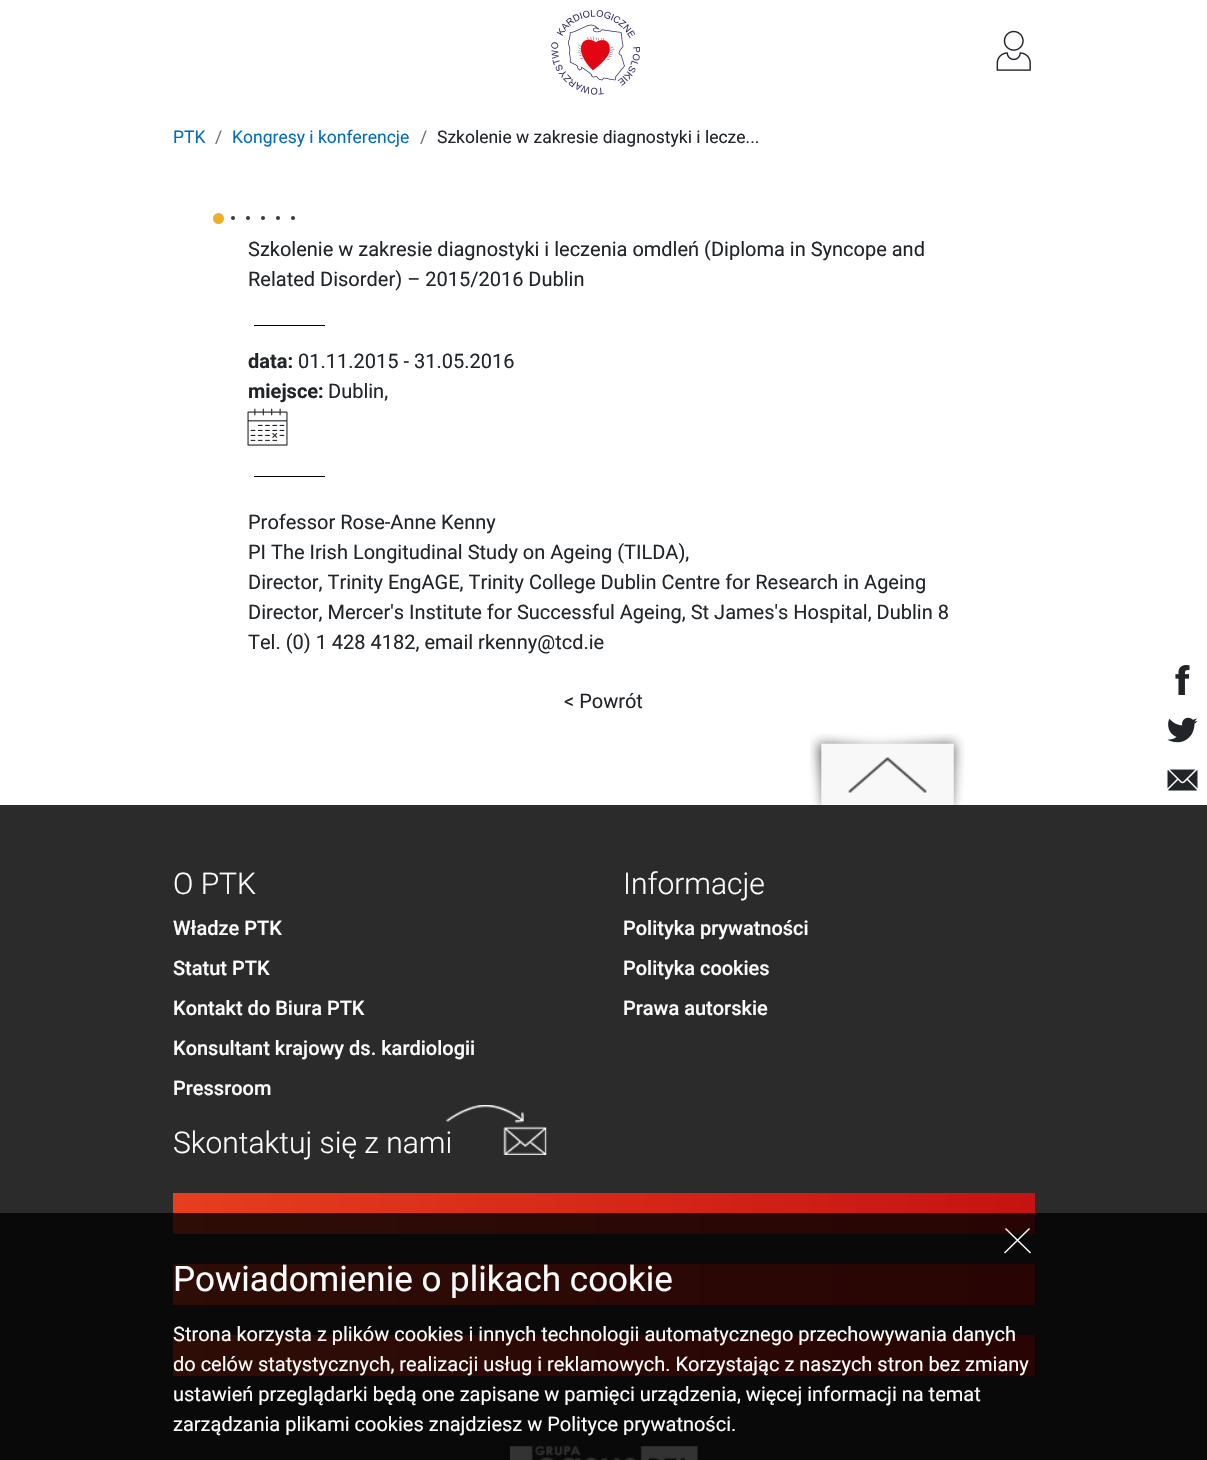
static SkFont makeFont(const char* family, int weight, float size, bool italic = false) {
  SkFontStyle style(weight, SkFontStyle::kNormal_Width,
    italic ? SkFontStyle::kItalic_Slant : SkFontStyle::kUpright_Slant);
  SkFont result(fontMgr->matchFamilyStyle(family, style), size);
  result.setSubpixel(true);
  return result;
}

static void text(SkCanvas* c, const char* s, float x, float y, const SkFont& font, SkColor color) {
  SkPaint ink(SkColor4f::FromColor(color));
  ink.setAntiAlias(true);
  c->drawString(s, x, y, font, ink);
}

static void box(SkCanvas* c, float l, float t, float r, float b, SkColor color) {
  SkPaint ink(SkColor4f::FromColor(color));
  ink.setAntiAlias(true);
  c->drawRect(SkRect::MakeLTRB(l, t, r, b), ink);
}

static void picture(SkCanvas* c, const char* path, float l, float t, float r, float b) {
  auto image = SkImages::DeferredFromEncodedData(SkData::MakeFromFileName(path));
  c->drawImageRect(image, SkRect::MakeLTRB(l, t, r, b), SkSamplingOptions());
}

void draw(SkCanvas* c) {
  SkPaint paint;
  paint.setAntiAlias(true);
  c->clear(0xffffffff);
  picture(c, "img_01.png", 551, 10, 640, 95);
  picture(c, "img_02.png", 996, 30, 1031, 71);
  SkFont face1 = makeFont("Roboto", 400, 17.5f);
  text(c, "PTK", 173, 143, face1, 0xff066db7);
  text(c, "/", 215, 143, face1, 0xff6c757d);
  text(c, "Kongresy i konferencje", 232, 143, face1, 0xff066db7);
  text(c, "/", 420, 143, face1, 0xff6c757d);
  text(c, "Szkolenie w zakresie diagnostyki i lecze...", 437, 143, face1, 0xff212529);
  paint.setColor(0xffebaf29);
  c->drawCircle(218.5f, 218.5f, 5.5f, paint);
  paint.setColor(0xff3d3737);
  c->drawCircle(233, 218, 2, paint);
  c->drawCircle(248, 218, 2, paint);
  c->drawCircle(263, 218, 2, paint);
  c->drawCircle(278, 218, 2, paint);
  c->drawCircle(293, 218, 2, paint);
  SkFont face2 = makeFont("Roboto", 400, 20);
  text(c, "Szkolenie w zakresie diagnostyki i leczenia omdleń (Diploma in Syncope and", 248, 256, face2, 0xff212529);
  text(c, "Related Disorder) – 2015/2016 Dublin", 248, 286, face2, 0xff212529);
  box(c, 254, 325, 325, 326, 0xff000000);
  SkFont face3 = makeFont("Roboto", 700, 20);
  text(c, "data:", 248, 368, face3, 0xff212529);
  text(c, "01.11.2015 - 31.05.2016", 298, 368, face2, 0xff212529);
  text(c, "miejsce:", 248, 398, face3, 0xff212529);
  text(c, "Dublin,", 328, 398, face2, 0xff212529);
  picture(c, "img_03.png", 247, 408, 288, 446);
  box(c, 254, 476, 325, 477, 0xff000000);
  text(c, "Professor Rose-Anne Kenny", 248, 529, face2, 0xff212529);
  text(c, "PI The Irish Longitudinal Study on Ageing (TILDA),", 248, 559, face2, 0xff212529);
  text(c, "Director, Trinity EngAGE, Trinity College Dublin Centre for Research in Ageing", 248, 589, face2, 0xff212529);
  text(c, "Director, Mercer's Institute for Successful Ageing, St James's Hospital, Dublin 8", 248, 619, face2, 0xff212529);
  text(c, "Tel. (0) 1 428 4182, email rkenny@tcd.ie", 248, 649, face2, 0xff212529);
  text(c, "< Powrót", 564, 708, face2, 0xff212529);
  picture(c, "img_04.png", 1175, 665, 1190, 695);
  picture(c, "img_05.png", 1167, 717, 1198, 743);
  picture(c, "img_06.png", 1167, 769, 1198, 791);
  box(c, 0, 805, 1207, 1460, 0xff2b2b2b);
  picture(c, "img_07.png", 810, 733, 965, 805);
  SkFont face4 = makeFont("Roboto", 300, 30);
  text(c, "O PTK", 173, 894, face4, 0xffffffff);
  SkFont face5 = makeFont("Roboto", 500, 20);
  text(c, "Władze PTK", 173, 935, face5, 0xffffffff);
  text(c, "Statut PTK", 173, 975, face5, 0xffffffff);
  text(c, "Kontakt do Biura PTK", 173, 1015, face5, 0xffffffff);
  text(c, "Konsultant krajowy ds. kardiologii", 173, 1055, face5, 0xffffffff);
  text(c, "Pressroom", 173, 1095, face5, 0xffffffff);
  text(c, "Informacje", 623, 894, face4, 0xffffffff);
  text(c, "Polityka prywatności", 623, 935, face5, 0xffffffff);
  text(c, "Polityka cookies", 623, 975, face5, 0xffffffff);
  text(c, "Prawa autorskie", 623, 1015, face5, 0xffffffff);
  text(c, "Skontaktuj się z nami", 173, 1153, face4, 0xffffffff);
  picture(c, "img_08.png", 446, 1105, 547, 1155);
  {
    const SkColor colors[] = {0xffe63e1e, 0xffc61212};
    const float stops[] = {0, 1};
    const SkPoint ends[] = {{173, 1213}, {1035, 1213}};
    paint.setShader(SkGradientShader::MakeLinear(ends, colors, stops, 2, SkTileMode::kClamp));
    paint.setAlpha(255);
  }
  c->drawRect(SkRect::MakeLTRB(173, 1193, 1035, 1234), paint);
  {
    const SkColor colors[] = {0xffe63e1e, 0xffc61212};
    const float stops[] = {0, 1};
    const SkPoint ends[] = {{173, 1284}, {1035, 1284}};
    paint.setShader(SkGradientShader::MakeLinear(ends, colors, stops, 2, SkTileMode::kClamp));
    paint.setAlpha(255);
  }
  c->drawRect(SkRect::MakeLTRB(173, 1264, 1035, 1305), paint);
  {
    const SkColor colors[] = {0xffe63e1e, 0xffc61212};
    const float stops[] = {0, 1};
    const SkPoint ends[] = {{173, 1356}, {1035, 1356}};
    paint.setShader(SkGradientShader::MakeLinear(ends, colors, stops, 2, SkTileMode::kClamp));
    paint.setAlpha(255);
  }
  c->drawRect(SkRect::MakeLTRB(173, 1335, 1035, 1376), paint);
  picture(c, "img_09.png", 510, 1446, 698, 1460);
  box(c, 0, 1213, 1207, 1460, 0xcc000000);
  paint.setShader(nullptr);
  paint.setColor(0xffffffff);
  c->drawPath(SkPathBuilder().moveTo(1006, 1228).lineTo(1031, 1252.5f).lineTo(1030, 1253.5f).lineTo(1005, 1229).close().detach(), paint);
  c->drawPath(SkPathBuilder().moveTo(1004, 1252.5f).lineTo(1029, 1228).lineTo(1030, 1229).lineTo(1005, 1253.5f).close().detach(), paint);
  SkFont face6 = makeFont("Roboto", 400, 35);
  text(c, "Powiadomienie o plikach cookie", 173, 1291, face6, 0xffffffff);
  text(c, "Strona korzysta z plików cookies i innych technologii automatycznego przechowywania danych", 173, 1341, face2, 0xffffffff);
  text(c, "do celów statystycznych, realizacji usług i reklamowych. Korzystając z naszych stron bez zmiany", 173, 1371, face2, 0xffffffff);
  text(c, "ustawień przeglądarki będą one zapisane w pamięci urządzenia, więcej informacji na temat", 173, 1401, face2, 0xffffffff);
  text(c, "zarządzania plikami cookies znajdziesz w Polityce prywatności.", 173, 1431, face2, 0xffffffff);
}
